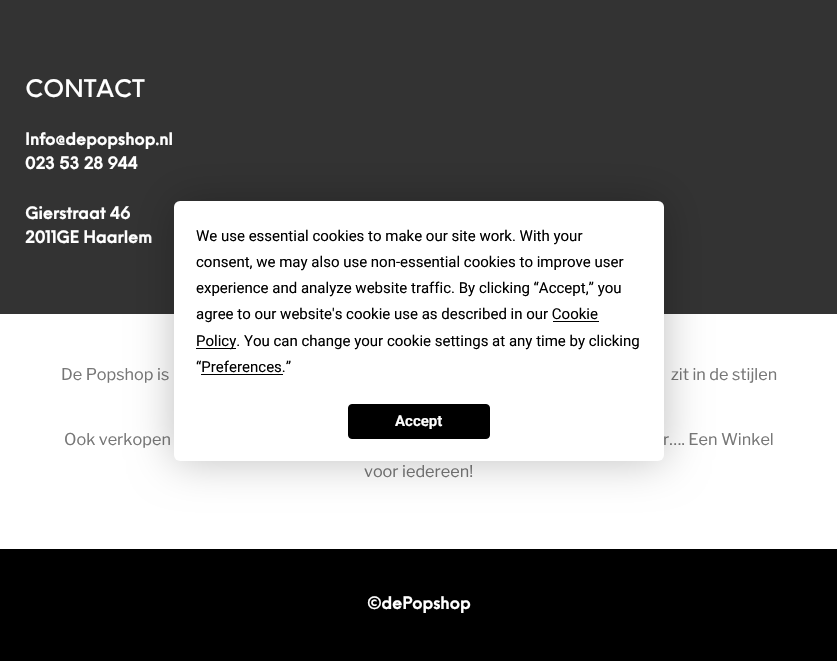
static SkFont makeFont(const char* family, int weight, float size, bool italic = false) {
  SkFontStyle style(weight, SkFontStyle::kNormal_Width,
    italic ? SkFontStyle::kItalic_Slant : SkFontStyle::kUpright_Slant);
  SkFont result(fontMgr->matchFamilyStyle(family, style), size);
  result.setSubpixel(true);
  return result;
}

static void text(SkCanvas* c, const char* s, float x, float y, const SkFont& font, SkColor color) {
  SkPaint ink(SkColor4f::FromColor(color));
  ink.setAntiAlias(true);
  c->drawString(s, x, y, font, ink);
}

static void box(SkCanvas* c, float l, float t, float r, float b, SkColor color) {
  SkPaint ink(SkColor4f::FromColor(color));
  ink.setAntiAlias(true);
  c->drawRect(SkRect::MakeLTRB(l, t, r, b), ink);
}

static void roundBox(SkCanvas* c, float l, float t, float r, float b, float radius, SkColor color) {
  SkPaint ink(SkColor4f::FromColor(color));
  ink.setAntiAlias(true);
  c->drawRoundRect(SkRect::MakeLTRB(l, t, r, b), radius, radius, ink);
}

void draw(SkCanvas* c) {
  SkPaint paint;
  paint.setAntiAlias(true);
  c->clear(0xffffffff);
  box(c, 0, 0, 837, 314, 0xff333333);
  SkFont face1 = makeFont("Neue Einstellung", 500, 23.75f);
  text(c, "CONTACT", 25, 97, face1, 0xffffffff);
  SkFont face2 = makeFont("Neue Einstellung", 700, 16.25f);
  text(c, "Info@depopshop.nl", 25, 145, face2, 0xffffffff);
  text(c, "023 53 28 944", 25, 169, face2, 0xffffffff);
  text(c, "Gierstraat 46", 25, 219, face2, 0xffffffff);
  text(c, "2011GE Haarlem", 25, 243, face2, 0xffffffff);
  SkFont face3 = makeFont("Libre Franklin", 400, 16.25f);
  text(c, "De Popshop is", 61, 380, face3, 0xff777777);
  text(c, "zit in de stijlen", 671, 380, face3, 0xff777777);
  text(c, "Ook verkopen", 64, 445, face3, 0xff777777);
  text(c, "r…. Een Winkel", 663, 445, face3, 0xff777777);
  text(c, "voor iedereen!", 364, 477, face3, 0xff777777);
  box(c, 0, 549, 837, 661, 0xff000000);
  text(c, "©dePopshop", 367, 609, face2, 0xffffffff);
  paint.setColor(0x40000000);
  paint.setMaskFilter(SkMaskFilter::MakeBlur(kNormal_SkBlurStyle, 22));
  c->drawRoundRect(SkRect::MakeLTRB(174, 201, 664, 461), 6, 6, paint);
  paint.setMaskFilter(nullptr);
  roundBox(c, 174, 201, 664, 461, 6, 0xffffffff);
  SkFont face4 = makeFont("Roboto", 400, 15);
  text(c, "We use essential cookies to make our site work. With your", 196, 241, face4, 0xff000000);
  text(c, "consent, we may also use non-essential cookies to improve user", 196, 267, face4, 0xff000000);
  text(c, "experience and analyze website traffic. By clicking “Accept,” you", 196, 293, face4, 0xff000000);
  text(c, "agree to our website's cookie use as described in our Cookie", 196, 319, face4, 0xff000000);
  box(c, 196, 348, 236, 349, 0xff000000);
  text(c, "Policy. You can change your cookie settings at any time by clicking", 196, 346, face4, 0xff000000);
  box(c, 553, 321, 599, 322, 0xff000000);
  text(c, "“Preferences.”", 196, 372, face4, 0xff000000);
  box(c, 201, 374, 283, 375, 0xff000000);
  paint.setColor(0xff000000);
  c->drawRoundRect(SkRect::MakeLTRB(348.5f, 404.5f, 489.5f, 438.5f), 3.5f, 3.5f, paint);
  paint.setStyle(SkPaint::kStroke_Style);
  paint.setStrokeWidth(1);
  c->drawRoundRect(SkRect::MakeLTRB(348.5f, 404.5f, 489.5f, 438.5f), 3.5f, 3.5f, paint);
  SkFont face5 = makeFont("Roboto", 700, 15);
  text(c, "Accept", 395, 426, face5, 0xffffffff);
}
